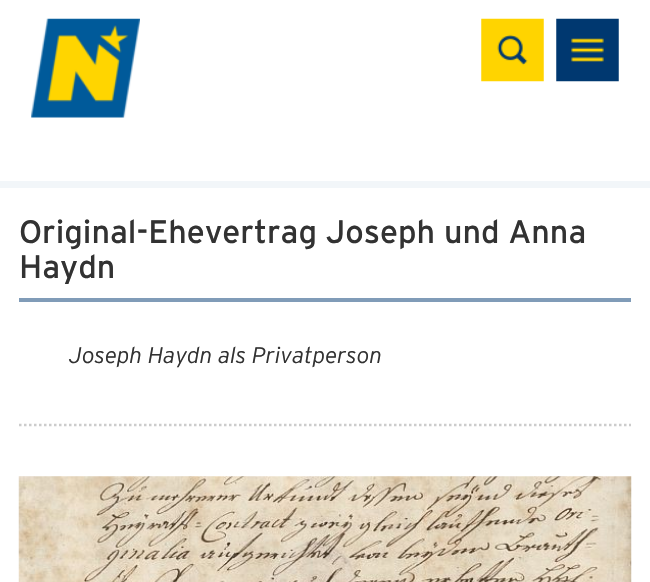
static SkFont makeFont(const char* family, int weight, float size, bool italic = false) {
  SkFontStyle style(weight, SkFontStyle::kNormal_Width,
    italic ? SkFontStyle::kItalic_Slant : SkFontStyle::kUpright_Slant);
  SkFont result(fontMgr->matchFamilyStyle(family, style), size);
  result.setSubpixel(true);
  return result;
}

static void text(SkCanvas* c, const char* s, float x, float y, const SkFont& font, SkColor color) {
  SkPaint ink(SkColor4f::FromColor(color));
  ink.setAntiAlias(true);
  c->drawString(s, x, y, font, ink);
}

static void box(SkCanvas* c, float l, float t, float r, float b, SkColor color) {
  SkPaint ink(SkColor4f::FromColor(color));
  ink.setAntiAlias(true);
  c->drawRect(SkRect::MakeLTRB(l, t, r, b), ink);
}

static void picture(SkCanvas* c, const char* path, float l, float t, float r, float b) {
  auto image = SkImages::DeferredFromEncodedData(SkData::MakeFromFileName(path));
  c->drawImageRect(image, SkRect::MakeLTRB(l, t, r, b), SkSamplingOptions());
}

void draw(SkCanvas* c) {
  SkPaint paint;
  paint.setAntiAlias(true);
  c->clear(0xffffffff);
  box(c, 0, 181, 650, 188, 0xfff2f6f9);
  picture(c, "img_01.png", 31, 18, 140, 118);
  picture(c, "img_02.png", 481, 18, 544, 82);
  picture(c, "img_03.png", 556, 18, 619, 82);
  box(c, 19, 298, 631, 302, 0xff809cb8);
  SkFont face1 = makeFont("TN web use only", 400, 32.5f);
  text(c, "Original-Ehevertrag Joseph und Anna", 19, 243, face1, 0xff323232);
  text(c, "Haydn", 19, 278, face1, 0xff323232);
  paint.setStyle(SkPaint::kStroke_Style);
  paint.setStrokeWidth(2.5f);
  paint.setColor(0xffcccccc);
  paint.setPathEffect(SkDashPathEffect::Make({{2.5f, 2.5f}}, 0));
  c->drawPath(SkPathBuilder().moveTo(19, 425).lineTo(631, 425).detach(), paint);
  paint.setPathEffect(nullptr);
  SkFont face2 = makeFont("TN web use only", 300, 22.5f, true);
  text(c, "Joseph Haydn als Privatperson", 69, 363, face2, 0xff323232);
  picture(c, "img_04.png", 18, 476, 632, 582);
}
